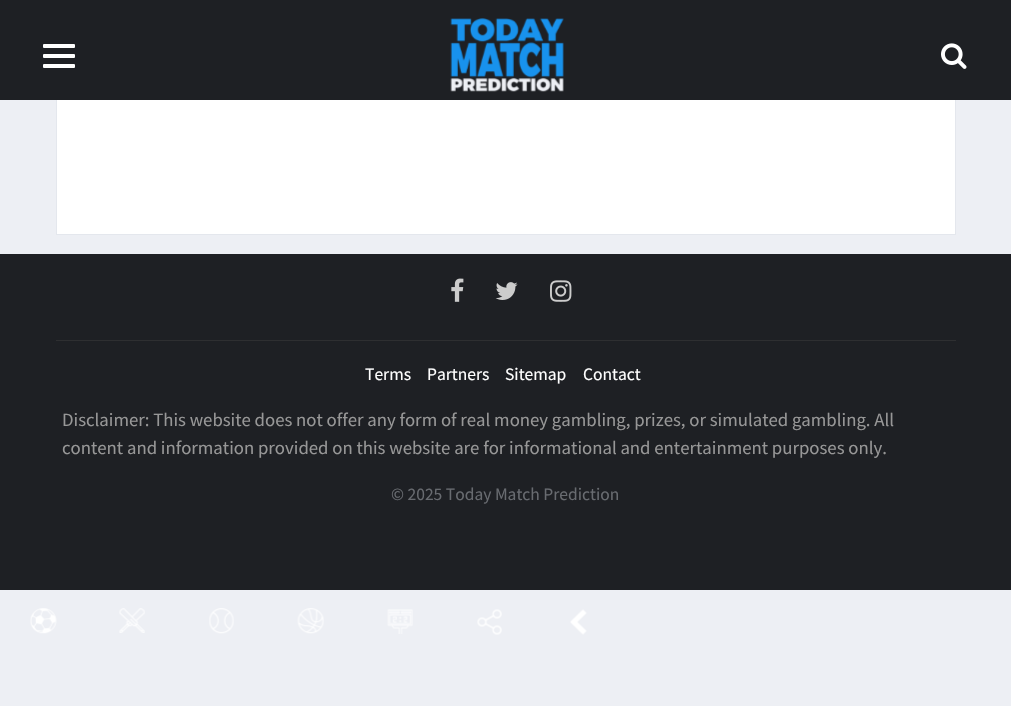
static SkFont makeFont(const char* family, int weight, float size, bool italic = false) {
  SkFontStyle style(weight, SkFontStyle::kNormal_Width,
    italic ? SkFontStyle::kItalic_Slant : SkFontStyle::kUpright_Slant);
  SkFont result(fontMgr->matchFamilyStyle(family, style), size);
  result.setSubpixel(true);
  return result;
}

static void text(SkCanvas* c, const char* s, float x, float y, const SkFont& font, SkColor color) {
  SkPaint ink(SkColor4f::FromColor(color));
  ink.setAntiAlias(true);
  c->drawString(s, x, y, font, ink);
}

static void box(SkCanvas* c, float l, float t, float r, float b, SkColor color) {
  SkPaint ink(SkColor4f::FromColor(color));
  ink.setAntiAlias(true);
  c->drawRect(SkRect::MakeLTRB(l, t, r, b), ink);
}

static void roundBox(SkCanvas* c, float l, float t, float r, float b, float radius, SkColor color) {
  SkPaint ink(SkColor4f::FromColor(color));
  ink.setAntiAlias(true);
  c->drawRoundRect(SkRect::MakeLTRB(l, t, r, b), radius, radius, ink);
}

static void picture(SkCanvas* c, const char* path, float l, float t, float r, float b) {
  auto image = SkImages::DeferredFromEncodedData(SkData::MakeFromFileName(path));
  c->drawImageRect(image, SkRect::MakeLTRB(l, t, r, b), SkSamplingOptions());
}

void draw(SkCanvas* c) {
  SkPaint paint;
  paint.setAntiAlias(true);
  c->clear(0xffedeff4);
  box(c, 57, 100, 955, 234, 0xffffffff);
  paint.setStyle(SkPaint::kStroke_Style);
  paint.setStrokeWidth(1);
  paint.setColor(0xffe4e7ed);
  c->drawRect(SkRect::MakeLTRB(56.5f, -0.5f, 955.5f, 234.5f), paint);
  box(c, 0, 0, 1011, 100, 0xff1e2024);
  roundBox(c, 43, 44, 75, 48, 1, 0xffffffff);
  roundBox(c, 43, 54, 75, 58, 1, 0xffffffff);
  roundBox(c, 43, 64, 75, 68, 1, 0xffffffff);
  picture(c, "img_01.png", 941, 43, 967, 69);
  picture(c, "img_02.png", 450, 18, 564, 92);
  box(c, 0, 254, 1011, 590, 0xff1e2024);
  picture(c, "img_03.png", 451, 278, 464, 302);
  picture(c, "img_04.png", 495, 282, 518, 300);
  picture(c, "img_05.png", 550, 280, 572, 302);
  box(c, 56, 340, 956, 341, 0xff2e2f31);
  SkFont face1 = makeFont("Source Sans Pro", 400, 17.5f);
  text(c, "Terms", 365, 380, face1, 0xffffffff);
  text(c, "Partners", 427, 380, face1, 0xffffffff);
  text(c, "Sitemap", 505, 380, face1, 0xffffffff);
  text(c, "Contact", 583, 380, face1, 0xffffffff);
  SkFont face2 = makeFont("Source Sans Pro", 400, 18.75f);
  text(c, "Disclaimer: This website does not offer any form of real money gambling, prizes, or simulated gambling. All", 62, 426, face2, 0xff979797);
  text(c, "content and information provided on this website are for informational and entertainment purposes only.", 62, 454, face2, 0xff979797);
  text(c, "© 2025 Today Match Prediction", 391, 500, face1, 0xff686b70);
  picture(c, "img_06.png", 30, 608, 57, 634);
  picture(c, "img_07.png", 119, 608, 145, 633);
  picture(c, "img_08.png", 209, 608, 234, 634);
  picture(c, "img_09.png", 297, 608, 324, 634);
  picture(c, "img_10.png", 387, 609, 413, 634);
  picture(c, "img_11.png", 477, 609, 502, 635);
  picture(c, "img_12.png", 570, 609, 587, 635);
}
